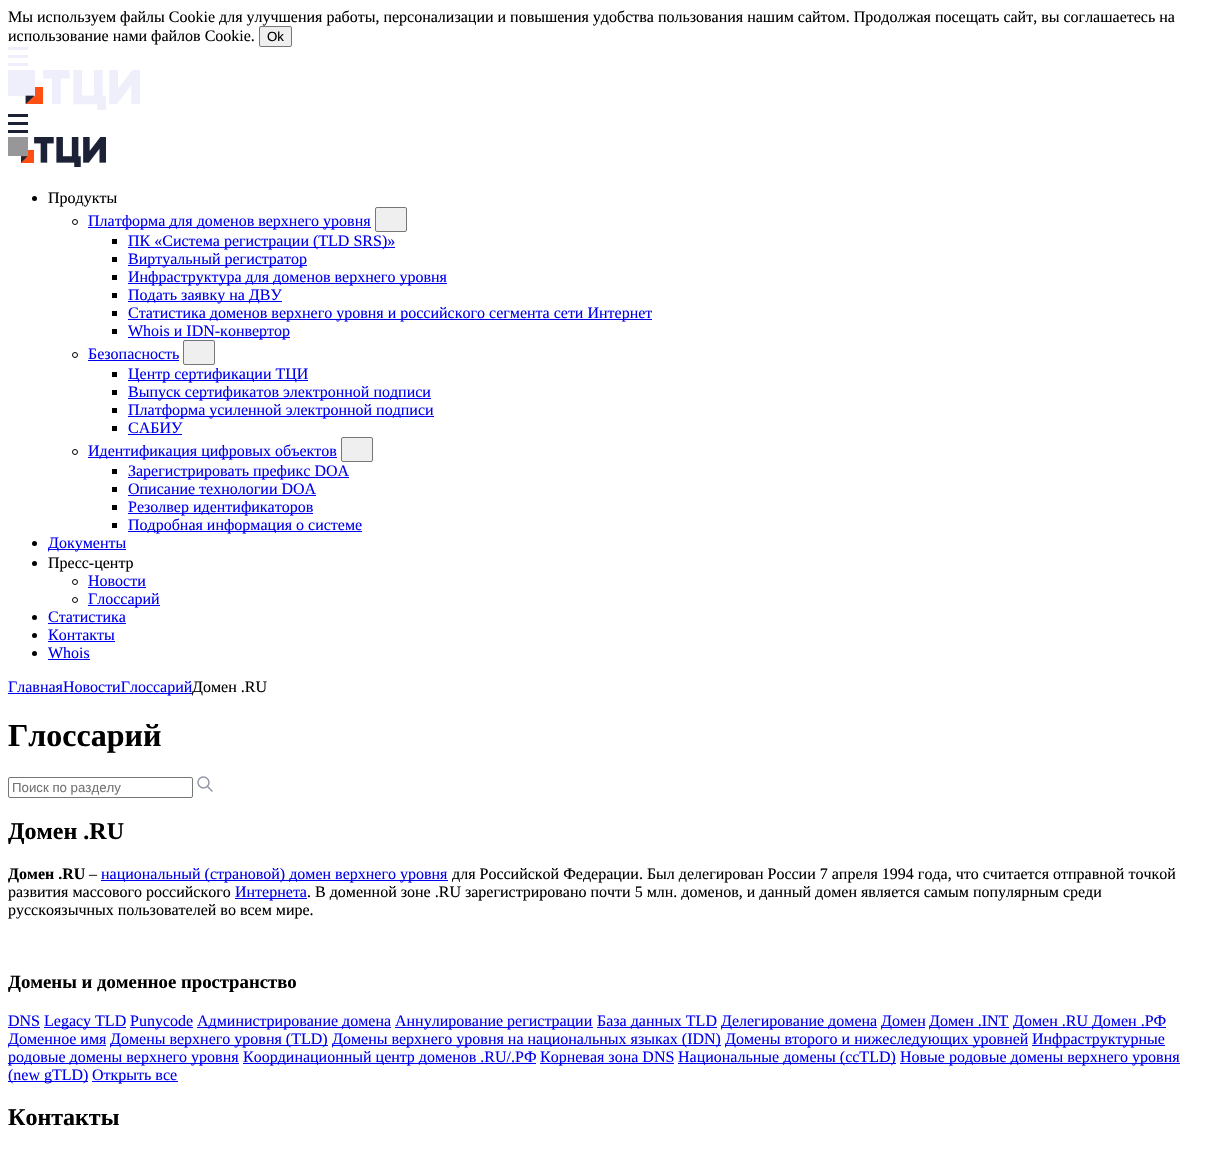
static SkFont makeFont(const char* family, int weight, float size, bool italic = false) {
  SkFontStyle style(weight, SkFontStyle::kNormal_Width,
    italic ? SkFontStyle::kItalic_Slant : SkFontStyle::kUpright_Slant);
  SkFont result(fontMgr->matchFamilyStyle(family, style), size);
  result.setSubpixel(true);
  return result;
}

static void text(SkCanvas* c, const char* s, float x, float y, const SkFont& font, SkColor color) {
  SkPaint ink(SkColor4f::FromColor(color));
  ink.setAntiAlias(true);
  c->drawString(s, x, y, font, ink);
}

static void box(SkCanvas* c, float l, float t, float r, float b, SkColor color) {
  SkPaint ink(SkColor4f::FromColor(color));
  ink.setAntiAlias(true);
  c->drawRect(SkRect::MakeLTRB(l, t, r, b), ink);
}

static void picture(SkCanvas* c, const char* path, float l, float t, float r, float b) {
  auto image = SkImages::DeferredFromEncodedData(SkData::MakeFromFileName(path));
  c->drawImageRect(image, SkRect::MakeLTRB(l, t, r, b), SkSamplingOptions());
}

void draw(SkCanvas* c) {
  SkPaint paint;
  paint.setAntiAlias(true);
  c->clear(0xffffffff);
  SkFont face1 = makeFont("Liberation Serif", 400, 16);
  text(c, "Мы используем файлы Cookie для улучшения работы, персонализации и повышения удобства пользования нашим сайтом. Продолжая посещать сайт, вы соглашаетесь на", 8, 22, face1, 0xff000000);
  text(c, "использование нами файлов Cookie.", 8, 41, face1, 0xff000000);
  paint.setColor(0xffefefef);
  c->drawRoundRect(SkRect::MakeLTRB(259.5f, 26.5f, 291.5f, 46.5f), 1.5f, 1.5f, paint);
  paint.setStyle(SkPaint::kStroke_Style);
  paint.setStrokeWidth(1);
  paint.setColor(0xff767676);
  c->drawRoundRect(SkRect::MakeLTRB(259.5f, 26.5f, 291.5f, 46.5f), 1.5f, 1.5f, paint);
  SkFont face2 = makeFont("Liberation Sans", 400, 13.25f);
  text(c, "Ok", 267, 41, face2, 0xff000000);
  box(c, 8, 47, 28, 50, 0xffeeeffa);
  box(c, 8, 55, 28, 58, 0xffeeeffa);
  box(c, 8, 63, 28, 66, 0xffeeeffa);
  picture(c, "img_01.png", 8, 70, 140, 110);
  box(c, 8, 114, 28, 117, 0xff1c2135);
  box(c, 8, 122, 28, 125, 0xff1c2135);
  box(c, 8, 130, 28, 133, 0xff1c2135);
  picture(c, "img_02.png", 8, 137, 106, 167);
  paint.setStyle(SkPaint::kFill_Style);
  paint.setColor(0xff000000);
  c->drawCircle(34.5f, 198.5f, 2.5f, paint);
  text(c, "Продукты", 48, 203, face1, 0xff000000);
  paint.setStyle(SkPaint::kStroke_Style);
  c->drawCircle(75, 222, 2.5f, paint);
  box(c, 88, 227, 371, 228, 0xff0000ee);
  text(c, "Платформа для доменов верхнего уровня", 88, 226, face1, 0xff0000ee);
  paint.setStyle(SkPaint::kFill_Style);
  paint.setColor(0xffefefef);
  c->drawRoundRect(SkRect::MakeLTRB(375.5f, 207.5f, 406.5f, 231.5f), 1.5f, 1.5f, paint);
  paint.setStyle(SkPaint::kStroke_Style);
  paint.setColor(0xff767676);
  c->drawRoundRect(SkRect::MakeLTRB(375.5f, 207.5f, 406.5f, 231.5f), 1.5f, 1.5f, paint);
  box(c, 112, 239, 117, 244, 0xff000000);
  box(c, 128, 247, 395, 248, 0xff0000ee);
  text(c, "ПК «Система регистрации (TLD SRS)»", 128, 246, face1, 0xff0000ee);
  box(c, 112, 257, 117, 262, 0xff000000);
  box(c, 128, 265, 307, 266, 0xff0000ee);
  text(c, "Виртуальный регистратор", 128, 264, face1, 0xff0000ee);
  box(c, 112, 275, 117, 280, 0xff000000);
  box(c, 128, 283, 447, 284, 0xff0000ee);
  text(c, "Инфраструктура для доменов верхнего уровня", 128, 282, face1, 0xff0000ee);
  box(c, 112, 293, 117, 298, 0xff000000);
  box(c, 128, 301, 282, 302, 0xff0000ee);
  text(c, "Подать заявку на ДВУ", 128, 300, face1, 0xff0000ee);
  box(c, 112, 311, 117, 316, 0xff000000);
  box(c, 128, 319, 652, 320, 0xff0000ee);
  text(c, "Статистика доменов верхнего уровня и российского сегмента сети Интернет", 128, 318, face1, 0xff0000ee);
  box(c, 112, 329, 117, 334, 0xff000000);
  box(c, 128, 337, 290, 338, 0xff0000ee);
  text(c, "Whois и IDN-конвертор", 128, 336, face1, 0xff0000ee);
  paint.setColor(0xff000000);
  c->drawCircle(75, 355, 2.5f, paint);
  text(c, "Безопасность", 88, 359, face1, 0xff0000ee);
  box(c, 88, 360, 179, 361, 0xff0000ee);
  paint.setStyle(SkPaint::kFill_Style);
  paint.setColor(0xffefefef);
  c->drawRoundRect(SkRect::MakeLTRB(183.5f, 340.5f, 214.5f, 364.5f), 1.5f, 1.5f, paint);
  paint.setStyle(SkPaint::kStroke_Style);
  paint.setColor(0xff767676);
  c->drawRoundRect(SkRect::MakeLTRB(183.5f, 340.5f, 214.5f, 364.5f), 1.5f, 1.5f, paint);
  box(c, 112, 372, 117, 377, 0xff000000);
  box(c, 128, 380, 308, 381, 0xff0000ee);
  text(c, "Центр сертификации ТЦИ", 128, 379, face1, 0xff0000ee);
  box(c, 112, 390, 117, 395, 0xff000000);
  box(c, 128, 398, 431, 399, 0xff0000ee);
  text(c, "Выпуск сертификатов электронной подписи", 128, 397, face1, 0xff0000ee);
  box(c, 112, 408, 117, 413, 0xff000000);
  box(c, 128, 416, 434, 417, 0xff0000ee);
  text(c, "Платформа усиленной электронной подписи", 128, 415, face1, 0xff0000ee);
  box(c, 112, 426, 117, 431, 0xff000000);
  text(c, "САБИУ", 128, 433, face1, 0xff0000ee);
  box(c, 128, 434, 182, 435, 0xff0000ee);
  paint.setColor(0xff000000);
  c->drawCircle(75, 452, 2.5f, paint);
  box(c, 88, 457, 337, 458, 0xff0000ee);
  text(c, "Идентификация цифровых объектов", 88, 456, face1, 0xff0000ee);
  paint.setStyle(SkPaint::kFill_Style);
  paint.setColor(0xffefefef);
  c->drawRoundRect(SkRect::MakeLTRB(341.5f, 437.5f, 372.5f, 461.5f), 1.5f, 1.5f, paint);
  paint.setStyle(SkPaint::kStroke_Style);
  paint.setColor(0xff767676);
  c->drawRoundRect(SkRect::MakeLTRB(341.5f, 437.5f, 372.5f, 461.5f), 1.5f, 1.5f, paint);
  box(c, 112, 469, 117, 474, 0xff000000);
  box(c, 128, 477, 349, 478, 0xff0000ee);
  text(c, "Зарегистрировать префикс DOA", 128, 476, face1, 0xff0000ee);
  box(c, 112, 487, 117, 492, 0xff000000);
  text(c, "Описание технологии DOA", 128, 494, face1, 0xff0000ee);
  box(c, 128, 495, 316, 496, 0xff0000ee);
  box(c, 112, 505, 117, 510, 0xff000000);
  box(c, 128, 513, 313, 514, 0xff0000ee);
  text(c, "Резолвер идентификаторов", 128, 512, face1, 0xff0000ee);
  box(c, 112, 523, 117, 528, 0xff000000);
  box(c, 128, 531, 362, 532, 0xff0000ee);
  text(c, "Подробная информация о системе", 128, 530, face1, 0xff0000ee);
  paint.setStyle(SkPaint::kFill_Style);
  paint.setColor(0xff000000);
  c->drawCircle(34.5f, 543.5f, 2.5f, paint);
  box(c, 48, 549, 126, 550, 0xff0000ee);
  text(c, "Документы", 48, 548, face1, 0xff0000ee);
  c->drawCircle(34.5f, 563.5f, 2.5f, paint);
  text(c, "Пресс-центр", 48, 568, face1, 0xff000000);
  paint.setStyle(SkPaint::kStroke_Style);
  c->drawCircle(75, 582, 2.5f, paint);
  text(c, "Новости", 88, 586, face1, 0xff0000ee);
  box(c, 88, 587, 146, 588, 0xff0000ee);
  c->drawCircle(75, 600, 2.5f, paint);
  box(c, 88, 605, 160, 606, 0xff0000ee);
  text(c, "Глоссарий", 88, 604, face1, 0xff0000ee);
  paint.setStyle(SkPaint::kFill_Style);
  c->drawCircle(34.5f, 617.5f, 2.5f, paint);
  text(c, "Статистика", 48, 622, face1, 0xff0000ee);
  box(c, 48, 623, 126, 624, 0xff0000ee);
  c->drawCircle(34.5f, 635.5f, 2.5f, paint);
  text(c, "Контакты", 48, 640, face1, 0xff0000ee);
  box(c, 48, 641, 115, 642, 0xff0000ee);
  c->drawCircle(34.5f, 653.5f, 2.5f, paint);
  text(c, "Whois", 48, 658, face1, 0xff0000ee);
  box(c, 48, 659, 90, 660, 0xff0000ee);
  box(c, 8, 693, 192, 694, 0xff0000ee);
  text(c, "ГлавнаяНовостиГлоссарий", 8, 692, face1, 0xff0000ee);
  text(c, "Домен .RU", 192, 692, face1, 0xff000000);
  SkFont face3 = makeFont("Liberation Serif", 700, 32);
  text(c, "Глоссарий", 8, 746, face3, 0xff000000);
  paint.setStyle(SkPaint::kStroke_Style);
  paint.setColor(0xff767676);
  c->drawRoundRect(SkRect::MakeLTRB(8.5f, 777.5f, 192.5f, 797.5f), 1.5f, 1.5f, paint);
  text(c, "Поиск по разделу", 12, 792, face2, 0xff757575);
  picture(c, "img_03.png", 197, 776, 213, 792);
  SkFont face4 = makeFont("Liberation Serif", 700, 24);
  text(c, "Домен .RU", 8, 839, face4, 0xff000000);
  SkFont face5 = makeFont("Liberation Serif", 700, 16);
  text(c, "Домен .RU", 8, 879, face5, 0xff000000);
  text(c, "–", 89, 879, face1, 0xff000000);
  box(c, 101, 880, 448, 881, 0xff0000ee);
  text(c, "национальный (страновой) домен верхнего уровня", 101, 879, face1, 0xff0000ee);
  text(c, "для Российской Федерации. Был делегирован России 7 апреля 1994 года, что считается отправной точкой", 452, 879, face1, 0xff000000);
  text(c, "развития массового российского", 8, 897, face1, 0xff000000);
  box(c, 235, 898, 307, 899, 0xff0000ee);
  text(c, "Интернета", 235, 897, face1, 0xff0000ee);
  text(c, ". В доменной зоне .RU зарегистрировано почти 5 млн. доменов, и данный домен является самым популярным среди", 307, 897, face1, 0xff000000);
  text(c, "русскоязычных пользователей во всем мире.", 8, 915, face1, 0xff000000);
  SkFont face6 = makeFont("Liberation Serif", 700, 18.75f);
  text(c, "Домены и доменное пространство", 8, 988, face6, 0xff000000);
  text(c, "DNS", 8, 1026, face1, 0xff0000ee);
  box(c, 8, 1027, 40, 1028, 0xff0000ee);
  box(c, 44, 1027, 126, 1028, 0xff0000ee);
  text(c, "Legacy TLD", 44, 1026, face1, 0xff0000ee);
  box(c, 130, 1027, 193, 1028, 0xff0000ee);
  text(c, "Punycode", 130, 1026, face1, 0xff0000ee);
  box(c, 197, 1027, 391, 1028, 0xff0000ee);
  text(c, "Администрирование домена", 197, 1026, face1, 0xff0000ee);
  box(c, 395, 1027, 593, 1028, 0xff0000ee);
  text(c, "Аннулирование регистрации", 395, 1026, face1, 0xff0000ee);
  box(c, 597, 1027, 717, 1028, 0xff0000ee);
  text(c, "База данных TLD", 597, 1026, face1, 0xff0000ee);
  box(c, 721, 1027, 877, 1028, 0xff0000ee);
  text(c, "Делегирование домена", 721, 1026, face1, 0xff0000ee);
  box(c, 881, 1027, 925, 1028, 0xff0000ee);
  text(c, "Домен", 881, 1026, face1, 0xff0000ee);
  box(c, 929, 1027, 1009, 1028, 0xff0000ee);
  text(c, "Домен .INT", 929, 1026, face1, 0xff0000ee);
  box(c, 1013, 1027, 1166, 1028, 0xff0000ee);
  text(c, "Домен .RU Домен .РФ", 1013, 1026, face1, 0xff0000ee);
  box(c, 8, 1045, 106, 1046, 0xff0000ee);
  text(c, "Доменное имя", 8, 1044, face1, 0xff0000ee);
  box(c, 110, 1045, 328, 1046, 0xff0000ee);
  text(c, "Домены верхнего уровня (TLD)", 110, 1044, face1, 0xff0000ee);
  box(c, 332, 1045, 721, 1046, 0xff0000ee);
  text(c, "Домены верхнего уровня на национальных языках (IDN)", 332, 1044, face1, 0xff0000ee);
  box(c, 725, 1045, 1028, 1046, 0xff0000ee);
  text(c, "Домены второго и нижеследующих уровней", 725, 1044, face1, 0xff0000ee);
  box(c, 1032, 1045, 1165, 1046, 0xff0000ee);
  text(c, "Инфраструктурные", 1032, 1044, face1, 0xff0000ee);
  box(c, 8, 1063, 239, 1064, 0xff0000ee);
  text(c, "родовые домены верхнего уровня", 8, 1062, face1, 0xff0000ee);
  box(c, 243, 1063, 536, 1064, 0xff0000ee);
  text(c, "Координационный центр доменов .RU/.РФ", 243, 1062, face1, 0xff0000ee);
  box(c, 540, 1063, 674, 1064, 0xff0000ee);
  text(c, "Корневая зона DNS", 540, 1062, face1, 0xff0000ee);
  box(c, 678, 1063, 896, 1064, 0xff0000ee);
  text(c, "Национальные домены (ccTLD)", 678, 1062, face1, 0xff0000ee);
  box(c, 900, 1063, 1180, 1064, 0xff0000ee);
  text(c, "Новые родовые домены верхнего уровня", 900, 1062, face1, 0xff0000ee);
  box(c, 8, 1081, 88, 1082, 0xff0000ee);
  text(c, "(new gTLD)", 8, 1080, face1, 0xff0000ee);
  box(c, 92, 1081, 178, 1082, 0xff0000ee);
  text(c, "Открыть все", 92, 1080, face1, 0xff0000ee);
  text(c, "Контакты", 8, 1125, face4, 0xff000000);
}
